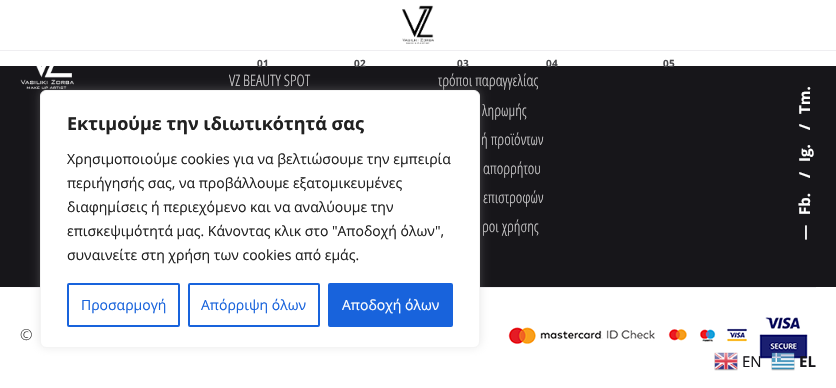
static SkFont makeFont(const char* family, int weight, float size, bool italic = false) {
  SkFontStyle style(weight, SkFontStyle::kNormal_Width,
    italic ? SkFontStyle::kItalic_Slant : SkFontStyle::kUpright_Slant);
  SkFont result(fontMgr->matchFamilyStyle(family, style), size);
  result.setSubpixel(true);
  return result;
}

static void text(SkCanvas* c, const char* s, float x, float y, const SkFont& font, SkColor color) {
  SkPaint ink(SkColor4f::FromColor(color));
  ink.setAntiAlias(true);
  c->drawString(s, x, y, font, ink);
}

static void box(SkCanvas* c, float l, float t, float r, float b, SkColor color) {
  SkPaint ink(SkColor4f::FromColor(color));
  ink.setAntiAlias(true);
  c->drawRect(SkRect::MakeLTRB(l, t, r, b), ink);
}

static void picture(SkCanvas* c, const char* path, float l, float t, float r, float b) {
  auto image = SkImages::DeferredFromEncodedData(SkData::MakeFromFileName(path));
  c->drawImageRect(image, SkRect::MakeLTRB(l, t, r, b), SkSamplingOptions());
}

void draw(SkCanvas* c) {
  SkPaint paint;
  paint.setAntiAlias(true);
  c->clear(0xff17161a);
  box(c, 0, 0, 836, 66, 0xffffffff);
  picture(c, "img_01.png", 402, 5, 434, 44);
  box(c, 0, 50, 836, 51, 0xffefeef1);
  SkFont face1 = makeFont("Open Sans", 700, 10);
  text(c, "0", 257, 67, face1, 0xff47474a);
  text(c, "1", 263, 67, face1, 0xff47474a);
  text(c, "0", 354, 67, face1, 0xff47474a);
  text(c, "2", 360, 67, face1, 0xff47474a);
  text(c, "0", 457, 67, face1, 0xff47474a);
  text(c, "3", 463, 67, face1, 0xff47474a);
  SkFont face2 = makeFont("Open Sans Condensed", 300, 15.75f);
  text(c, "τρόποι παραγγελίας", 438, 86, face2, 0xffd1d0d1);
  picture(c, "img_02.png", 470, 77, 477, 79);
  text(c, "0", 546, 67, face1, 0xff47474a);
  text(c, "4", 552, 67, face1, 0xff47474a);
  text(c, "0", 663, 67, face1, 0xff47474a);
  text(c, "5", 669, 67, face1, 0xff47474a);
  picture(c, "img_03.png", 20, 66, 74, 89);
  text(c, "VZ BEAUTY SPOT", 229, 86, face2, 0xffd1d0d1);
  text(c, "ληρωμής", 482, 116, face2, 0xffd1d0d1);
  text(c, "ή προϊόντων", 481, 145, face2, 0xffd1d0d1);
  text(c, "απορρήτου", 483, 174, face2, 0xffd1d0d1);
  text(c, "επιστροφών", 483, 203, face2, 0xffd1d0d1);
  text(c, "ροι χρήσης", 482, 232, face2, 0xffd1d0d1);
  box(c, 0, 287, 836, 388, 0xffffffff);
  box(c, 20, 287, 816, 288, 0xffefeef1);
  SkFont face3 = makeFont("Open Sans", 300, 15);
  text(c, "©", 20, 340, face3, 0xff353535);
  picture(c, "img_04.png", 508, 317, 808, 359);
  SkFont face4 = makeFont("Open Sans", 700, 15);
  c->save();
  c->rotate(-90, 810, 114);
  text(c, "Tm.", 810, 114, face4, 0xffffffff);
  c->restore();
  c->save();
  c->rotate(-90, 810, 130);
  text(c, "/", 810, 130, face4, 0xffffffff);
  c->restore();
  c->save();
  c->rotate(-90, 810, 162);
  text(c, "Ig.", 810, 162, face4, 0xffffffff);
  c->restore();
  c->save();
  c->rotate(-90, 810, 178);
  text(c, "/", 810, 178, face4, 0xffffffff);
  c->restore();
  c->save();
  c->rotate(-90, 810, 215);
  text(c, "Fb.", 810, 215, face4, 0xffffffff);
  c->restore();
  c->save();
  c->rotate(-90, 810, 240);
  text(c, "—", 810, 240, face4, 0xffffffff);
  c->restore();
  paint.setColor(0x4dacabab);
  paint.setMaskFilter(SkMaskFilter::MakeBlur(kNormal_SkBlurStyle, 5));
  c->drawRoundRect(SkRect::MakeLTRB(40, 89, 480, 347), 6, 6, paint);
  paint.setMaskFilter(nullptr);
  paint.setColor(0xffffffff);
  c->drawRoundRect(SkRect::MakeLTRB(40.5f, 90.5f, 479.5f, 347.5f), 5.5f, 5.5f, paint);
  paint.setStyle(SkPaint::kStroke_Style);
  paint.setStrokeWidth(1);
  paint.setColor(0xfff4f4f4);
  c->drawRoundRect(SkRect::MakeLTRB(40.5f, 90.5f, 479.5f, 347.5f), 5.5f, 5.5f, paint);
  SkFont face5 = makeFont("Open Sans", 700, 18);
  text(c, "Εκτιμούμε την ιδιωτικότητά σας", 67, 130, face5, 0xff212121);
  SkFont face6 = makeFont("Open Sans", 400, 14);
  text(c, "Χρησιμοποιούμε cookies για να βελτιώσουμε την εμπειρία", 67, 164, face6, 0xff212121);
  text(c, "περιήγησής σας, να προβάλλουμε εξατομικευμένες", 67, 188, face6, 0xff212121);
  text(c, "διαφημίσεις ή περιεχόμενο και να αναλύουμε την", 67, 212, face6, 0xff212121);
  text(c, "επισκεψιμότητά μας. Κάνοντας κλικ στο \"Αποδοχή όλων\",", 67, 236, face6, 0xff212121);
  text(c, "συναινείτε στη χρήση των cookies από εμάς.", 67, 260, face6, 0xff212121);
  paint.setStrokeWidth(2);
  paint.setColor(0xff1863dc);
  c->drawRoundRect(SkRect::MakeLTRB(68, 284, 179, 326), 1, 1, paint);
  text(c, "Προσαρμογή", 81, 310, face6, 0xff1863dc);
  c->drawRoundRect(SkRect::MakeLTRB(189, 284, 319, 326), 1, 1, paint);
  text(c, "Απόρριψη όλων", 201, 310, face6, 0xff1863dc);
  paint.setStyle(SkPaint::kFill_Style);
  c->drawRoundRect(SkRect::MakeLTRB(329, 284, 452, 326), 1, 1, paint);
  paint.setStyle(SkPaint::kStroke_Style);
  c->drawRoundRect(SkRect::MakeLTRB(329, 284, 452, 326), 1, 1, paint);
  text(c, "Αποδοχή όλων", 342, 310, face6, 0xffffffff);
  picture(c, "img_05.png", 714, 352, 738, 371);
  SkFont face7 = makeFont("Open Sans", 400, 15);
  text(c, "EN", 742, 367, face7, 0xff161519);
  picture(c, "img_06.png", 771, 352, 795, 371);
  text(c, "EL", 799, 367, face4, 0xff161519);
}
